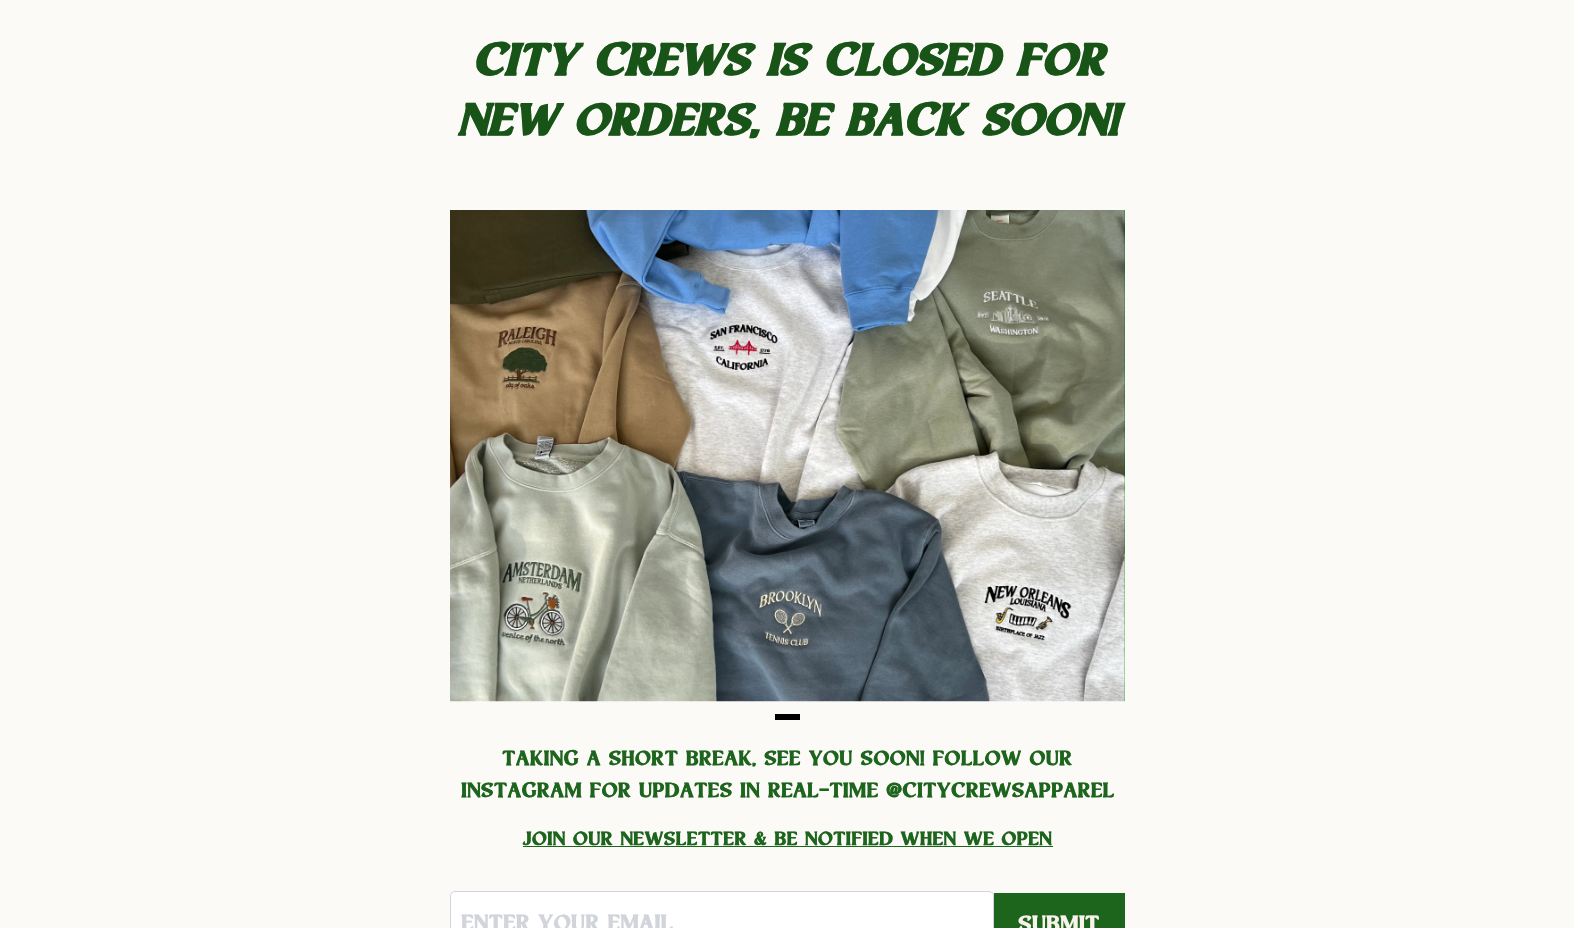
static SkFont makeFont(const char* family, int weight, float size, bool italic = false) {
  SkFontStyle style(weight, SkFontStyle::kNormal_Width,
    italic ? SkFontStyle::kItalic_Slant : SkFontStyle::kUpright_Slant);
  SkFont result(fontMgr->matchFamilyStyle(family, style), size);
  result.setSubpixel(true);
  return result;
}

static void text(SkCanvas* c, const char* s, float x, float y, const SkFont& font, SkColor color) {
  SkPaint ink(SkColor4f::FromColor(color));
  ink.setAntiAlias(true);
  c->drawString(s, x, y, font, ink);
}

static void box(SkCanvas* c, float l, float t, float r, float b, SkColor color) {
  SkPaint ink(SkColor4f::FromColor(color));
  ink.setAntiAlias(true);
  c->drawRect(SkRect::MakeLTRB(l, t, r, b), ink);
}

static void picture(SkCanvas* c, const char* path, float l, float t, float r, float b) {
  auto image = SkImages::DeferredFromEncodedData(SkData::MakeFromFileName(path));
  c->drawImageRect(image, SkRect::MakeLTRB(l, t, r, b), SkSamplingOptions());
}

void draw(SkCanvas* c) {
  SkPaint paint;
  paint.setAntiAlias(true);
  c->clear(0xfffcfaf7);
  SkFont face1 = makeFont("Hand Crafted", 700, 40, true);
  text(c, "city crews is closed for", 472, 75, face1, 0xff185418);
  text(c, "new orders, be back soon!", 457, 135, face1, 0xff185418);
  picture(c, "img_01.png", 450, 210, 1125, 702);
  box(c, 775, 714, 800, 720, 0xff000000);
  SkFont face2 = makeFont("Hand Crafted", 400, 18.75f);
  text(c, "TAKING A SHORT BREAK, SEE YOU SOON! FOLLOW OUR", 502, 765, face2, 0xff1d641d);
  text(c, "INSTAGRAM FOR UPDATES IN REAL-TIME @CITYCREWSAPPAREL", 461, 797, face2, 0xff1d641d);
  SkFont face3 = makeFont("Hand Crafted", 400, 17.5f);
  text(c, "JOIN OUR NEWSLETTER & be notified when we open", 522, 845, face3, 0xff1d641d);
  box(c, 523, 846, 1053, 847, 0xff1d641d);
  paint.setColor(0xffffffff);
  c->drawRoundRect(SkRect::MakeLTRB(450.5f, 891.5f, 993.5f, 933.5f), 4.5f, 4.5f, paint);
  paint.setStyle(SkPaint::kStroke_Style);
  paint.setStrokeWidth(1);
  paint.setColor(0xffd1d5db);
  c->drawRoundRect(SkRect::MakeLTRB(450.5f, 891.5f, 993.5f, 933.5f), 4.5f, 4.5f, paint);
  SkFont face4 = makeFont("Hand Crafted", 400, 20);
  text(c, "Enter your email", 461, 930, face4, 0xffd1d5db);
  box(c, 994, 893, 1125, 928, 0xff1d641d);
  text(c, "Submit", 1018, 931, face4, 0xfff9f4eb);
}
